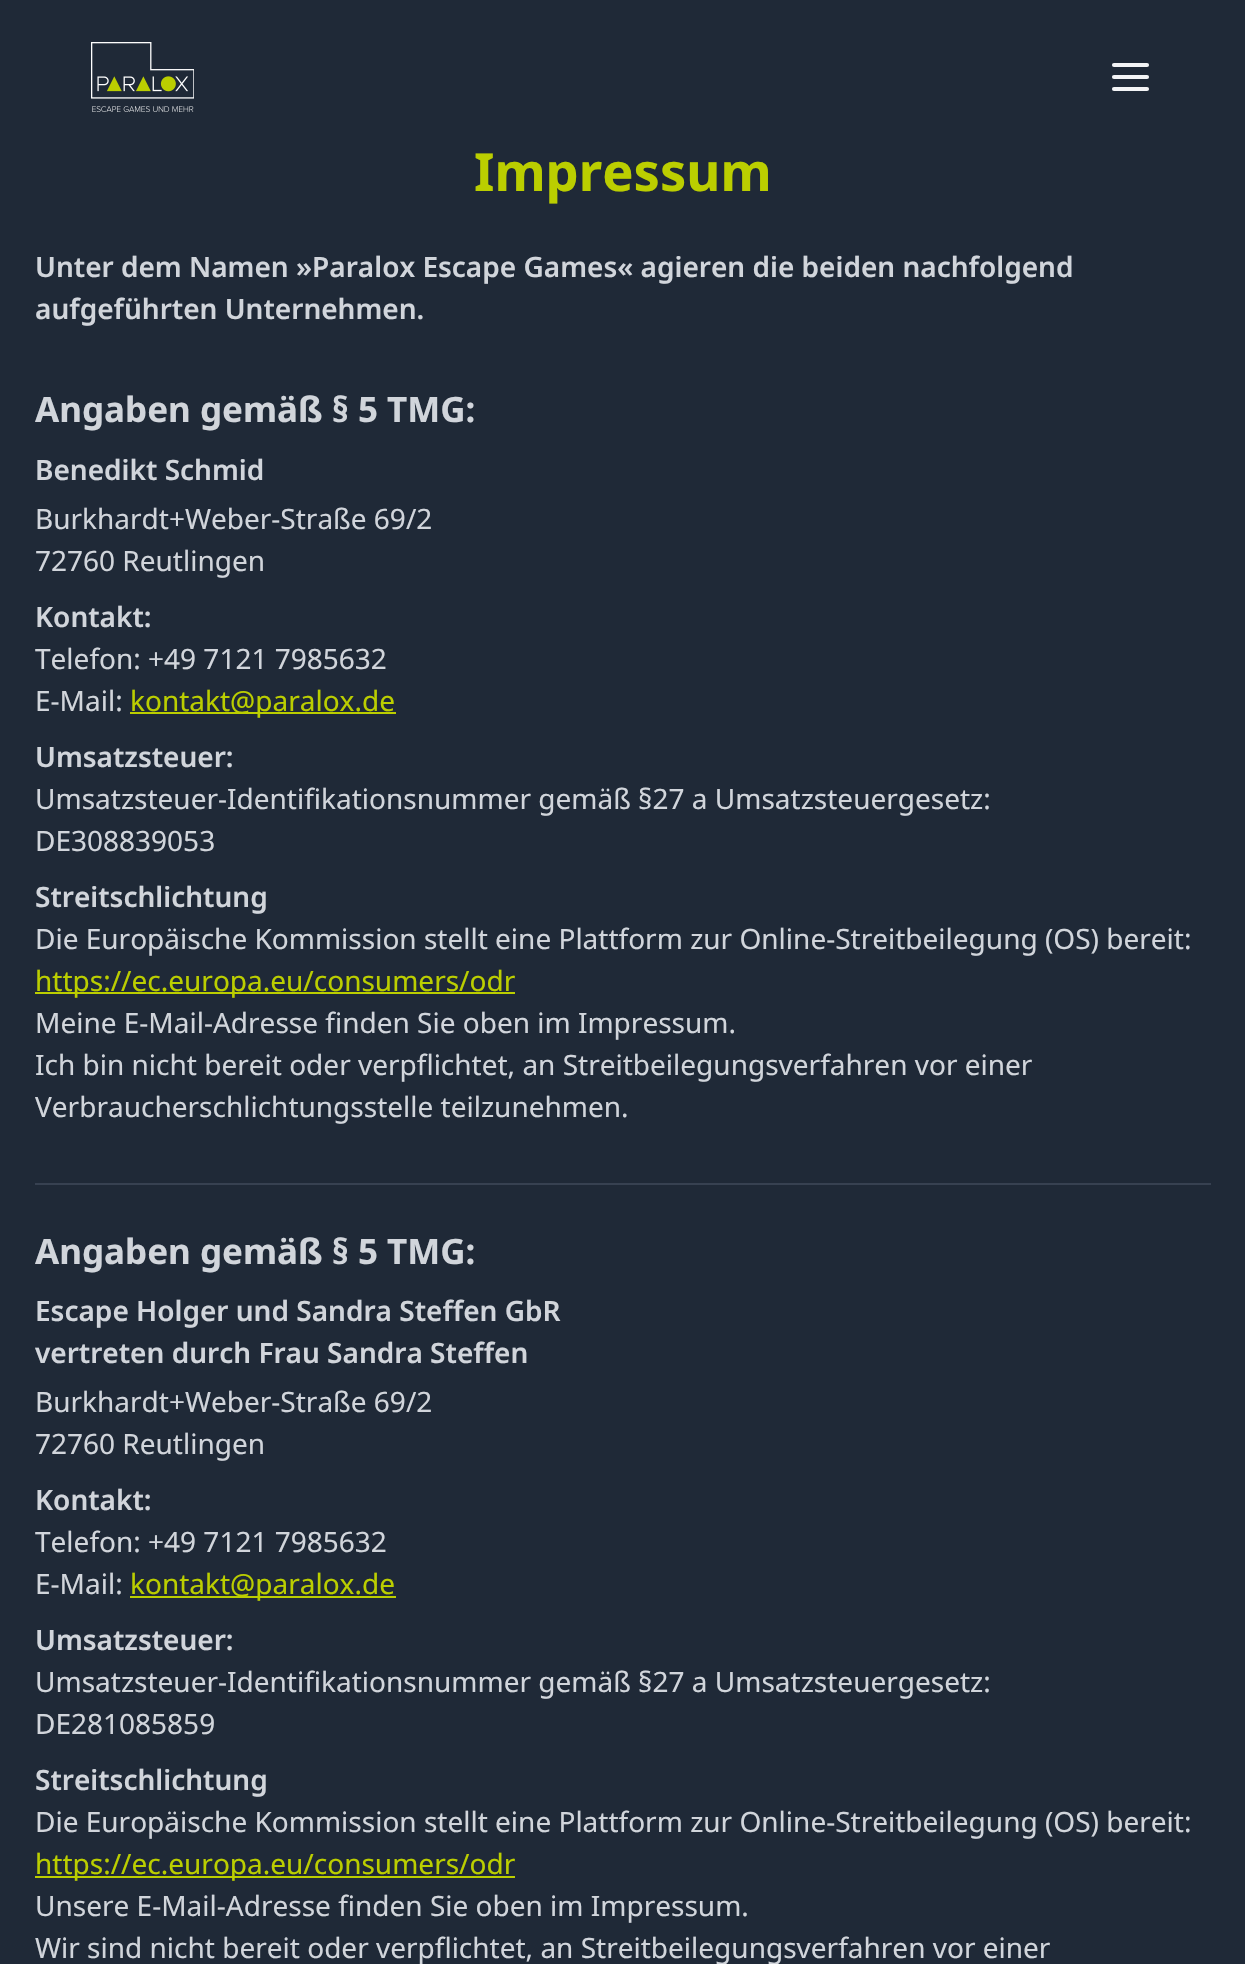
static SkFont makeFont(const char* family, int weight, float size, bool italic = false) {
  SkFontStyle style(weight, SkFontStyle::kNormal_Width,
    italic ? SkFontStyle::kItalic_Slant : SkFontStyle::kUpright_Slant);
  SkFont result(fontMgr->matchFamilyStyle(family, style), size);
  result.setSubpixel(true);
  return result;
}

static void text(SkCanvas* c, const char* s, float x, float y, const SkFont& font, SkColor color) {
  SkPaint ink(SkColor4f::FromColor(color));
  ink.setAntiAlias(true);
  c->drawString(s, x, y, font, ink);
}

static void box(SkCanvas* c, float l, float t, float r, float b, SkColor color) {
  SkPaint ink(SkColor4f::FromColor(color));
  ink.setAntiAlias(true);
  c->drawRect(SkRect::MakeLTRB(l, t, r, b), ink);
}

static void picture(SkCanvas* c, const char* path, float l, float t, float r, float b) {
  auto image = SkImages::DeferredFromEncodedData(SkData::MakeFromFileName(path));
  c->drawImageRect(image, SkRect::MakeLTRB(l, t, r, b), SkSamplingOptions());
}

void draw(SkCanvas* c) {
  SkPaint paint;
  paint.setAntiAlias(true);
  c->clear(0xff1f2937);
  picture(c, "img_01.png", 91, 42, 194, 112);
  paint.setStyle(SkPaint::kStroke_Style);
  paint.setStrokeWidth(4.1f);
  paint.setStrokeCap(SkPaint::kRound_Cap);
  paint.setStrokeJoin(SkPaint::kRound_Join);
  paint.setColor(0xfff3f4f6);
  c->drawPath(SkPathBuilder().moveTo(1114, 77).lineTo(1147, 77).moveTo(1114, 65).lineTo(1147, 65).moveTo(1114, 89).lineTo(1147, 89).detach(), paint);
  SkFont face1 = makeFont("Noto Sans", 700, 52.5f);
  text(c, "Impressum", 474, 191, face1, 0xffbbce00);
  SkFont face2 = makeFont("Noto Sans", 600, 28);
  text(c, "Unter dem Namen »Paralox Escape Games« agieren die beiden nachfolgend", 35, 277, face2, 0xffd1d5db);
  text(c, "aufgeführten Unternehmen.", 35, 319, face2, 0xffd1d5db);
  SkFont face3 = makeFont("Noto Sans", 700, 35);
  text(c, "Angaben gemäß § 5 TMG:", 35, 422, face3, 0xffd1d5db);
  text(c, "Benedikt Schmid", 35, 480, face2, 0xffd1d5db);
  SkFont face4 = makeFont("Noto Sans", 400, 28);
  text(c, "Burkhardt+Weber-Straße 69/2", 35, 529, face4, 0xffd1d5db);
  text(c, "72760 Reutlingen", 35, 571, face4, 0xffd1d5db);
  text(c, "Kontakt:", 35, 627, face2, 0xffd1d5db);
  text(c, "Telefon: +49 7121 7985632", 35, 669, face4, 0xffd1d5db);
  text(c, "E-Mail:", 35, 711, face4, 0xffd1d5db);
  box(c, 130, 712, 396, 714, 0xffbbce00);
  text(c, "kontakt@paralox.de", 130, 711, face4, 0xffbbce00);
  text(c, "Umsatzsteuer:", 35, 767, face2, 0xffd1d5db);
  text(c, "Umsatzsteuer-Identifikationsnummer gemäß §27 a Umsatzsteuergesetz:", 35, 809, face4, 0xffd1d5db);
  text(c, "DE308839053", 35, 851, face4, 0xffd1d5db);
  text(c, "Streitschlichtung", 35, 907, face2, 0xffd1d5db);
  text(c, "Die Europäische Kommission stellt eine Plattform zur Online-Streitbeilegung (OS) bereit:", 35, 949, face4, 0xffd1d5db);
  box(c, 35, 992, 515, 994, 0xffbbce00);
  text(c, "https://ec.europa.eu/consumers/odr", 35, 991, face4, 0xffbbce00);
  text(c, "Meine E-Mail-Adresse finden Sie oben im Impressum.", 35, 1033, face4, 0xffd1d5db);
  text(c, "Ich bin nicht bereit oder verpflichtet, an Streitbeilegungsverfahren vor einer", 35, 1075, face4, 0xffd1d5db);
  text(c, "Verbraucherschlichtungsstelle teilzunehmen.", 35, 1117, face4, 0xffd1d5db);
  box(c, 35, 1183, 1211, 1185, 0xff374151);
  text(c, "Angaben gemäß § 5 TMG:", 35, 1264, face3, 0xffd1d5db);
  text(c, "Escape Holger und Sandra Steffen GbR", 35, 1321, face2, 0xffd1d5db);
  text(c, "vertreten durch Frau Sandra Steffen", 35, 1363, face2, 0xffd1d5db);
  text(c, "Burkhardt+Weber-Straße 69/2", 35, 1412, face4, 0xffd1d5db);
  text(c, "72760 Reutlingen", 35, 1454, face4, 0xffd1d5db);
  text(c, "Kontakt:", 35, 1510, face2, 0xffd1d5db);
  text(c, "Telefon: +49 7121 7985632", 35, 1552, face4, 0xffd1d5db);
  text(c, "E-Mail:", 35, 1594, face4, 0xffd1d5db);
  box(c, 130, 1596, 396, 1598, 0xffbbce00);
  text(c, "kontakt@paralox.de", 130, 1594, face4, 0xffbbce00);
  text(c, "Umsatzsteuer:", 35, 1650, face2, 0xffd1d5db);
  text(c, "Umsatzsteuer-Identifikationsnummer gemäß §27 a Umsatzsteuergesetz:", 35, 1692, face4, 0xffd1d5db);
  text(c, "DE281085859", 35, 1734, face4, 0xffd1d5db);
  text(c, "Streitschlichtung", 35, 1790, face2, 0xffd1d5db);
  text(c, "Die Europäische Kommission stellt eine Plattform zur Online-Streitbeilegung (OS) bereit:", 35, 1832, face4, 0xffd1d5db);
  box(c, 35, 1876, 515, 1878, 0xffbbce00);
  text(c, "https://ec.europa.eu/consumers/odr", 35, 1874, face4, 0xffbbce00);
  text(c, "Unsere E-Mail-Adresse finden Sie oben im Impressum.", 35, 1916, face4, 0xffd1d5db);
  text(c, "Wir sind nicht bereit oder verpflichtet, an Streitbeilegungsverfahren vor einer", 35, 1958, face4, 0xffd1d5db);
}
